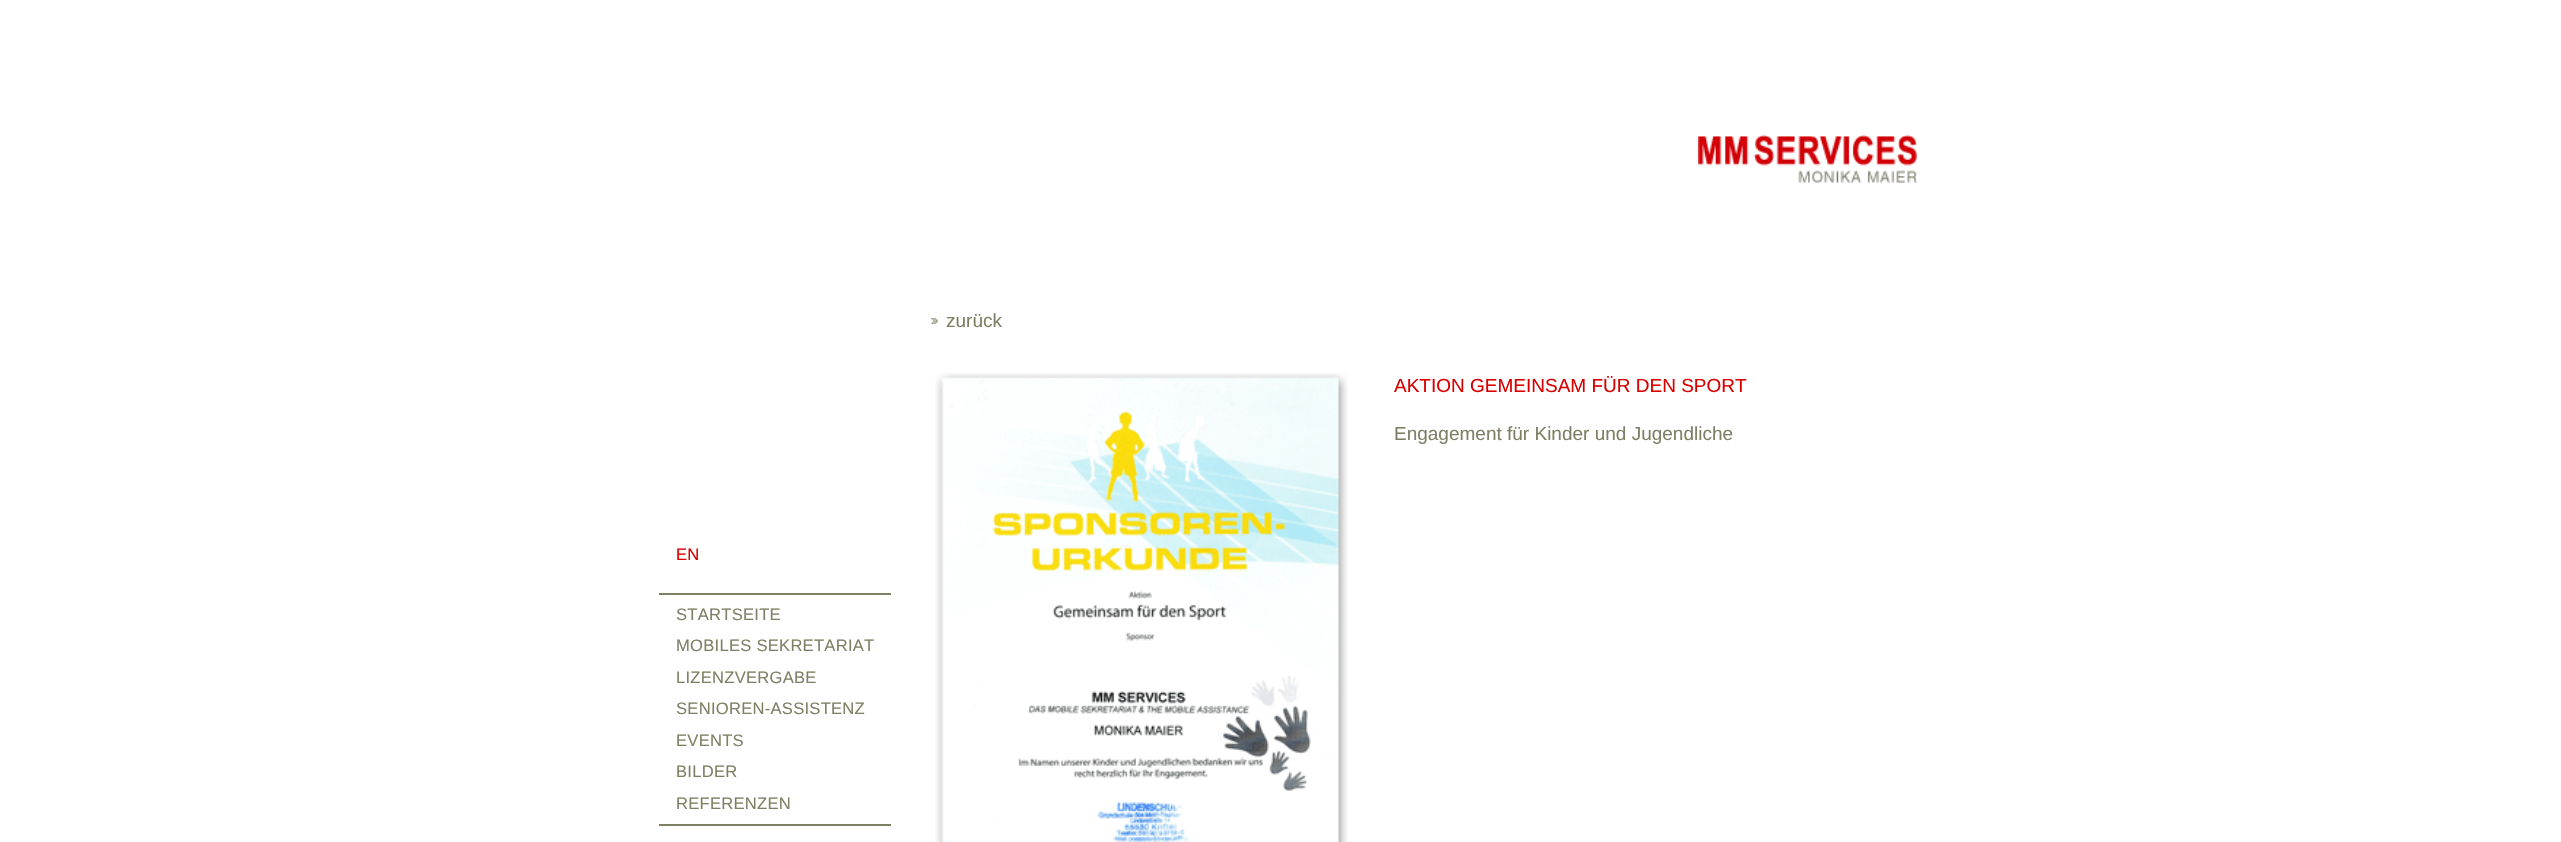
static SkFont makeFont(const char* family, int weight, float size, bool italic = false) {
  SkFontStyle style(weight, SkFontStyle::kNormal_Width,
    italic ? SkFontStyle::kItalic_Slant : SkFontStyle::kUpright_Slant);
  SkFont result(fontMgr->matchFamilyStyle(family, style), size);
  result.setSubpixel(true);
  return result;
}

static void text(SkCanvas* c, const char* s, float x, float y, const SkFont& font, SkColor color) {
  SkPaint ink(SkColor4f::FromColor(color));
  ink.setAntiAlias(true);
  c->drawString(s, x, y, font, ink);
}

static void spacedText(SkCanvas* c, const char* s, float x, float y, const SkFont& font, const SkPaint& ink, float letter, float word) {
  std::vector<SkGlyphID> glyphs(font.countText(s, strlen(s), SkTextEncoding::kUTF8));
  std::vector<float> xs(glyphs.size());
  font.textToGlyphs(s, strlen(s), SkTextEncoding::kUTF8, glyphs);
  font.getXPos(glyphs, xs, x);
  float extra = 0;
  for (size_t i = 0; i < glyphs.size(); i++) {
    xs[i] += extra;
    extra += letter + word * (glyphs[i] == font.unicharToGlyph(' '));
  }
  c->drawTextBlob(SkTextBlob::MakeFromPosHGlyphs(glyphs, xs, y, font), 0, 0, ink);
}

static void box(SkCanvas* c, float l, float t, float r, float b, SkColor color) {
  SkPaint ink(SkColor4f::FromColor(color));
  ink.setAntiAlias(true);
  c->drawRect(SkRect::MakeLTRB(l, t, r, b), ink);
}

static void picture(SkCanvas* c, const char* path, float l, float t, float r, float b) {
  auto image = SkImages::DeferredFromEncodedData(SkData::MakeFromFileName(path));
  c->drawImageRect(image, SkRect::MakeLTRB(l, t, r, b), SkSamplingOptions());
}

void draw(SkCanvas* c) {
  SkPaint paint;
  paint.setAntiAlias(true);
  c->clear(0xffffffff);
  picture(c, "img_01.png", 1698, 135, 1917, 183);
  picture(c, "img_02.png", 931, 318, 938, 324);
  SkFont face1 = makeFont("Liberation Sans", 400, 19);
  text(c, "zurück", 946, 327, face1, 0xff7f7f66);
  picture(c, "img_03.png", 935, 373, 1348, 842);
  text(c, "AKTION GEMEINSAM FÜR DEN SPORT", 1394, 392, face1, 0xffd90000);
  text(c, "Engagement für Kinder und Jugendliche", 1394, 440, face1, 0xff7f7f66);
  box(c, 659, 593, 891, 595, 0xff7f7f66);
  SkFont face2 = makeFont("Liberation Sans", 400, 16.6f);
  paint.setColor(0xffd90000);
  spacedText(c, "EN", 676, 560, face2, paint, 0.25f, 0);
  box(c, 659, 824, 891, 826, 0xff7f7f66);
  paint.setColor(0xff7f7f66);
  spacedText(c, "STARTSEITE", 676, 620, face2, paint, 0.25f, 0);
  spacedText(c, "MOBILES SEKRETARIAT", 676, 651, face2, paint, 0.25f, 0);
  spacedText(c, "LIZENZVERGABE", 676, 683, face2, paint, 0.25f, 0);
  spacedText(c, "SENIOREN-ASSISTENZ", 676, 714, face2, paint, 0.25f, 0);
  spacedText(c, "EVENTS", 676, 746, face2, paint, 0.25f, 0);
  spacedText(c, "BILDER", 676, 777, face2, paint, 0.25f, 0);
  spacedText(c, "REFERENZEN", 676, 809, face2, paint, 0.25f, 0);
}
